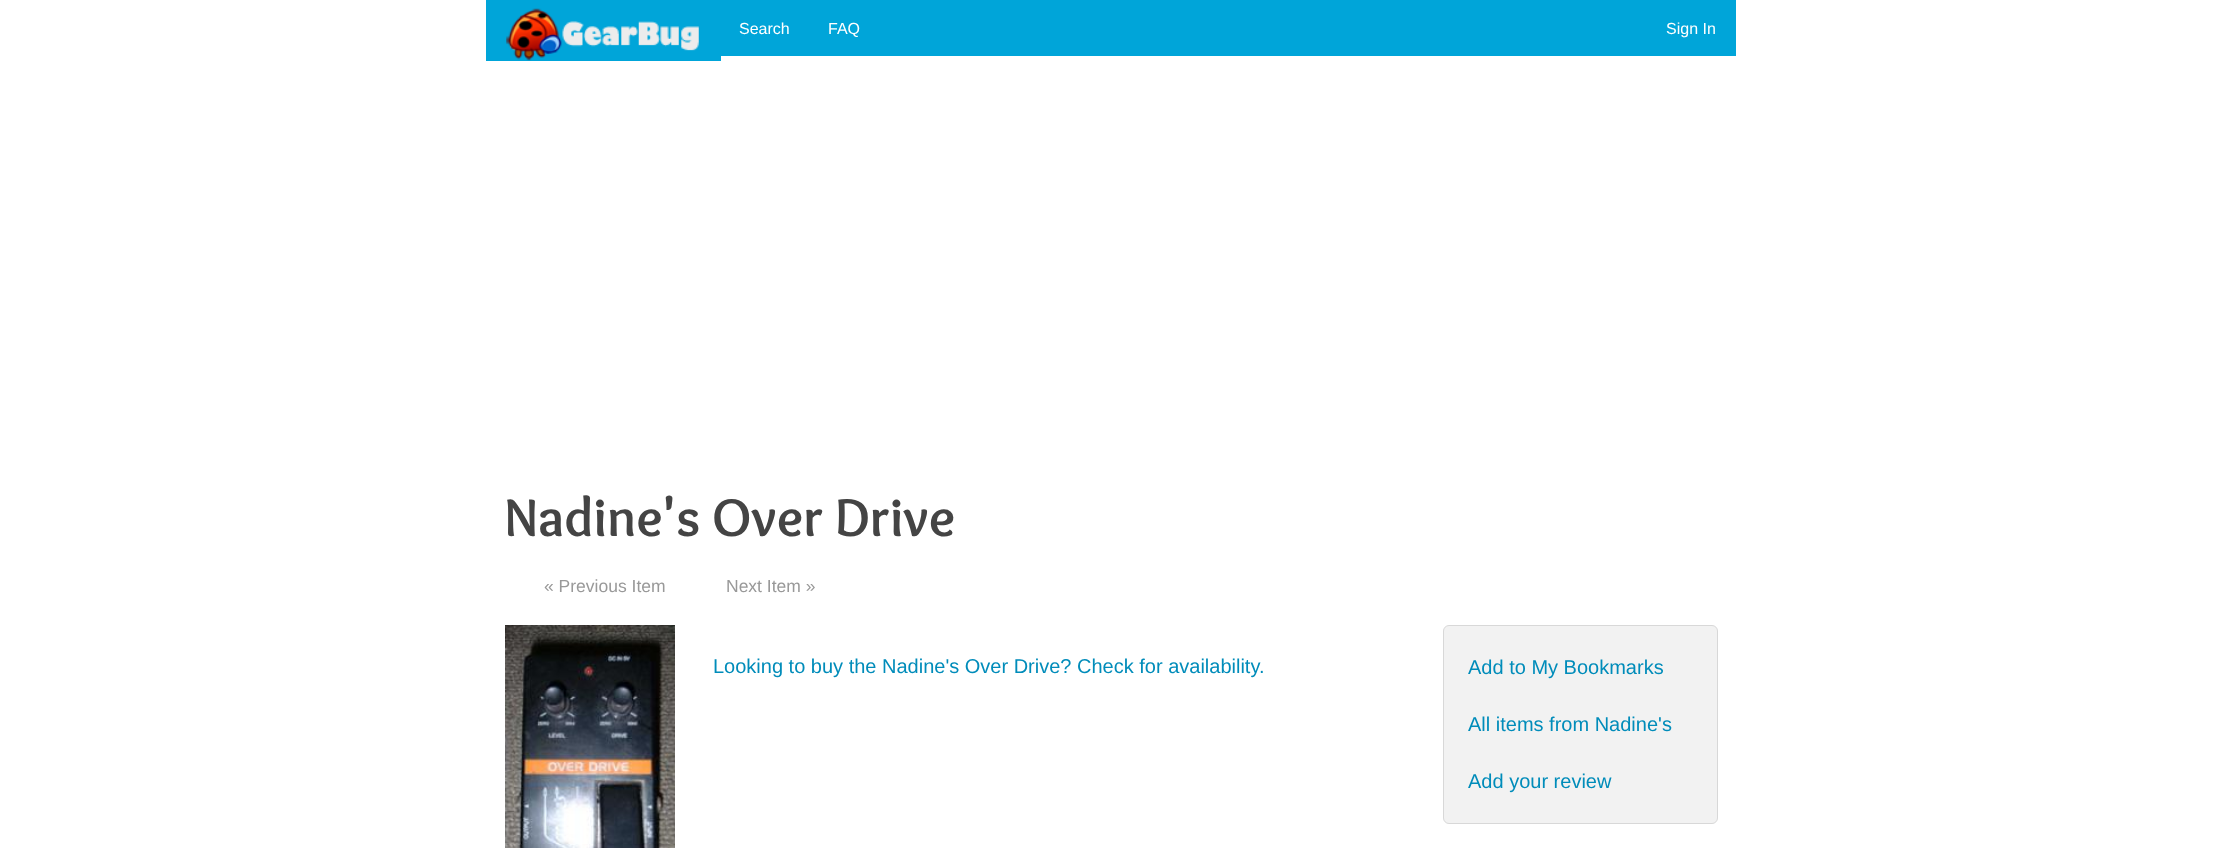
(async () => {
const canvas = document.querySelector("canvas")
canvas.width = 2221
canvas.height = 848
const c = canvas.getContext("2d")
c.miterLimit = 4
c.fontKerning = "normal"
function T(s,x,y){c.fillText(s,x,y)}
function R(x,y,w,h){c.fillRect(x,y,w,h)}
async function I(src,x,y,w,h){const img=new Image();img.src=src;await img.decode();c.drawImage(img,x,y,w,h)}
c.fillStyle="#fff"
R(0,0,2221,848)
c.fillStyle="#00a5d9"
R(880,0,856,56)
R(486,0,235,61)
await I("1.png",506,8,193,53)
R(721,0,159,56)
c.font="16px Liberation Sans"
c.fillStyle="#fff"
T("Search",739,34)
T("FAQ",828,34)
T("Sign In",1666,34)
c.font="bold 55px Overlock"
c.fillStyle="#444"
T("Nadine's Over Drive",504,536)
c.font="17.5px Liberation Sans"
c.fillStyle="#999"
T("« Previous Item",544,592)
T("Next Item »",726,592)
await I("2.png",505,625,170,223)
c.font="20px Liberation Sans"
c.fillStyle="#008cba"
T("Looking to buy the Nadine's Over Drive? Check for availability.",713,673)
c.fillStyle="#f2f2f2"
c.beginPath()
c.roundRect(1443.5,625.5,274,198,5.5)
c.fill()
c.strokeStyle="#d8d8d8"
c.stroke()
c.fillStyle="#008cba"
T("Add to My Bookmarks",1468,674)
T("All items from Nadine's",1468,731)
T("Add your review",1468,788)
})()
